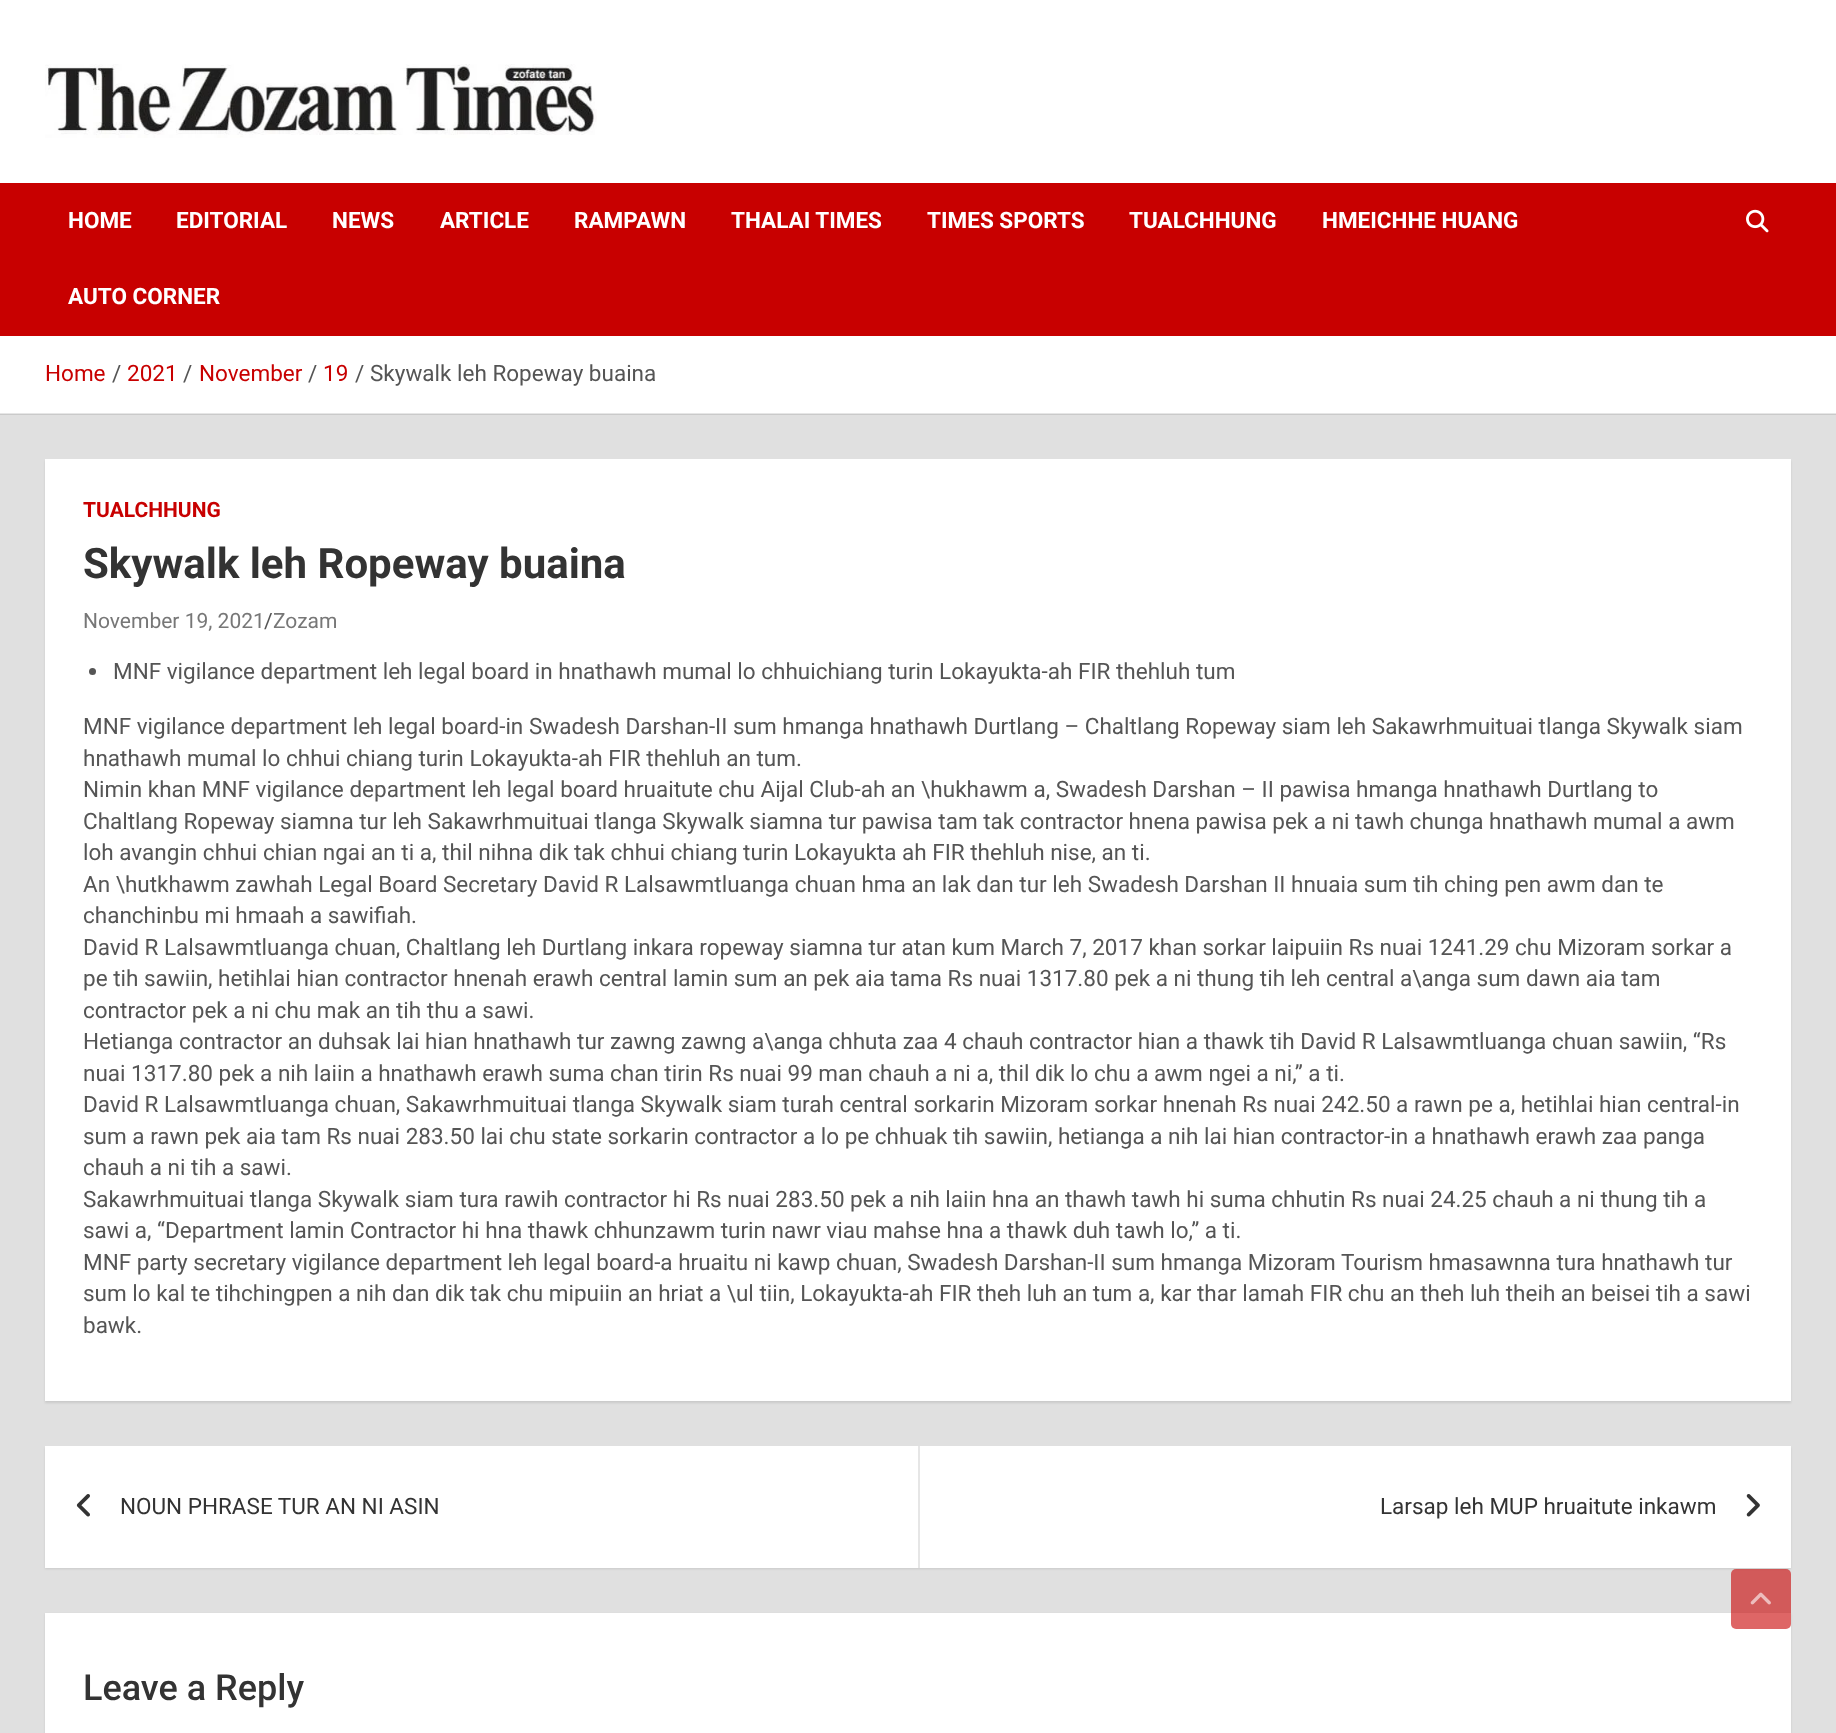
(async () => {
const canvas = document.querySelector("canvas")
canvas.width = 1836
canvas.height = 1733
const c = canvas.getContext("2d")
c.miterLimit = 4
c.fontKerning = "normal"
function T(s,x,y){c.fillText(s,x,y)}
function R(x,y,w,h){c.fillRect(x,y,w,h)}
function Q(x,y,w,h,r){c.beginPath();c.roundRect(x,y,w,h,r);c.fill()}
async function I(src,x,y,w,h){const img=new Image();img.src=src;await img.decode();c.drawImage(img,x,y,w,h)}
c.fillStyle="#e0e0e0"
R(0,0,1836,1733)
c.fillStyle="#cacaca"
R(0,414,1836,1)
c.fillStyle="#fff"
R(0,0,1836,183)
await I("1.png",45,64,552,74)
c.fillStyle="#c80000"
R(0,183,1836,153)
c.font="bold 22.5px Roboto"
c.fillStyle="#fff"
T("HOME",68,228)
T("EDITORIAL",176,228)
T("NEWS",332,228)
T("ARTICLE",440,228)
T("RAMPAWN",574,228)
T("THALAI TIMES",731,228)
T("TIMES SPORTS",927,228)
T("TUALCHHUNG",1129,228)
T("HMEICHHE HUANG",1322,228)
T("AUTO CORNER",68,304)
await I("2.png",1746,209,23,24)
R(0,336,1836,77)
c.fillStyle="#e6e6e6"
R(0,413,1836,1)
c.font="22.5px Roboto"
c.fillStyle="#c80000"
T("Home",45,381)
c.fillStyle="#555"
T("/",112,381)
c.fillStyle="#c80000"
T("2021",127,381)
c.fillStyle="#555"
T("/",183,381)
c.fillStyle="#c80000"
T("November",199,381)
c.fillStyle="#555"
T("/",308,381)
c.fillStyle="#c80000"
T("19",323,381)
c.fillStyle="#555"
T("/",355,381)
T("Skywalk leh Ropeway buaina",370,381)
c.fillStyle="#0000001a"
c.filter="blur(1px)"
c.beginPath()
c.rect(45,461,1746,942)
c.fill()
c.filter="none"
c.fillStyle="#fff"
R(45,459,1746,942)
c.font="bold 21px Roboto"
c.fillStyle="#c80000"
T("TUALCHHUNG",83,517)
c.font="bold 42px Roboto"
c.fillStyle="#333"
T("Skywalk leh Ropeway buaina",83,578)
c.font="21px Roboto"
c.fillStyle="#777"
T("November 19, 2021",83,628)
c.fillStyle="#555"
T("/",264,628)
c.fillStyle="#777"
T("Zozam",273,628)
c.fillStyle="#555"
c.beginPath()
c.arc(92.5,671.5,3.5,0,7)
c.fill()
c.font="22.5px Roboto"
T("MNF vigilance department leh legal board in hnathawh mumal lo chhuichiang turin Lokayukta-ah FIR thehluh tum",113,679)
T("MNF vigilance department leh legal board-in Swadesh Darshan-II sum hmanga hnathawh Durtlang – Chaltlang Ropeway siam leh Sakawrhmuituai tlanga Skywalk siam",83,734)
T("hnathawh mumal lo chhui chiang turin Lokayukta-ah FIR thehluh an tum.",83,766)
T("Nimin khan MNF vigilance department leh legal board hruaitute chu Aijal Club-ah an \\hukhawm a, Swadesh Darshan – II pawisa hmanga hnathawh Durtlang to",83,797)
T("Chaltlang Ropeway siamna tur leh Sakawrhmuituai tlanga Skywalk siamna tur pawisa tam tak contractor hnena pawisa pek a ni tawh chunga hnathawh mumal a awm",83,829)
T("loh avangin chhui chian ngai an ti a, thil nihna dik tak chhui chiang turin Lokayukta ah FIR thehluh nise, an ti.",83,860)
T("An \\hutkhawm zawhah Legal Board Secretary David R Lalsawmtluanga chuan hma an lak dan tur leh Swadesh Darshan II hnuaia sum tih ching pen awm dan te",83,892)
T("chanchinbu mi hmaah a sawifiah.",83,923)
T("David R Lalsawmtluanga chuan, Chaltlang leh Durtlang inkara ropeway siamna tur atan kum March 7, 2017 khan sorkar laipuiin Rs nuai 1241.29 chu Mizoram sorkar a",83,955)
T("pe tih sawiin, hetihlai hian contractor hnenah erawh central lamin sum an pek aia tama Rs nuai 1317.80 pek a ni thung tih leh central a\\anga sum dawn aia tam",83,986)
T("contractor pek a ni chu mak an tih thu a sawi.",83,1018)
T("Hetianga contractor an duhsak lai hian hnathawh tur zawng zawng a\\anga chhuta zaa 4 chauh contractor hian a thawk tih David R Lalsawmtluanga chuan sawiin, “Rs",83,1049)
T("nuai 1317.80 pek a nih laiin a hnathawh erawh suma chan tirin Rs nuai 99 man chauh a ni a, thil dik lo chu a awm ngei a ni,” a ti.",83,1081)
T("David R Lalsawmtluanga chuan, Sakawrhmuituai tlanga Skywalk siam turah central sorkarin Mizoram sorkar hnenah Rs nuai 242.50 a rawn pe a, hetihlai hian central-in",83,1112)
T("sum a rawn pek aia tam Rs nuai 283.50 lai chu state sorkarin contractor a lo pe chhuak tih sawiin, hetianga a nih lai hian contractor-in a hnathawh erawh zaa panga",83,1144)
T("chauh a ni tih a sawi.",83,1175)
T("Sakawrhmuituai tlanga Skywalk siam tura rawih contractor hi Rs nuai 283.50 pek a nih laiin hna an thawh tawh hi suma chhutin Rs nuai 24.25 chauh a ni thung tih a",83,1207)
T("sawi a, “Department lamin Contractor hi hna thawk chhunzawm turin nawr viau mahse hna a thawk duh tawh lo,” a ti.",83,1238)
T("MNF party secretary vigilance department leh legal board-a hruaitu ni kawp chuan, Swadesh Darshan-II sum hmanga Mizoram Tourism hmasawnna tura hnathawh tur",83,1270)
T("sum lo kal te tihchingpen a nih dan dik tak chu mipuiin an hriat a \\ul tiin, Lokayukta-ah FIR theh luh an tum a, kar thar lamah FIR chu an theh luh theih an beisei tih a sawi",83,1301)
T("bawk.",83,1333)
c.fillStyle="#0000001a"
c.filter="blur(1px)"
c.beginPath()
c.rect(45,1448,1746,121)
c.fill()
c.filter="none"
c.fillStyle="#fff"
R(45,1446,1746,122)
await I("3.png",76,1494,14,23)
c.fillStyle="#333"
T("NOUN PHRASE TUR AN NI ASIN",120,1514)
c.fillStyle="#e6e6e6"
R(918,1446,2,122)
c.fillStyle="#333"
T("Larsap leh MUP hruaitute inkawm",1380,1514)
await I("4.png",1746,1494,14,23)
c.fillStyle="#0000001a"
c.filter="blur(1px)"
c.beginPath()
c.rect(45,1614,1746,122)
c.fill()
c.filter="none"
c.fillStyle="#fff"
R(45,1613,1746,120)
c.font="500 36px Roboto"
c.fillStyle="#333"
T("Leave a Reply",83,1700)
c.fillStyle="#c8000099"
Q(1731,1569,60,60,5)
await I("5.png",1750,1592,21,13)
})()
